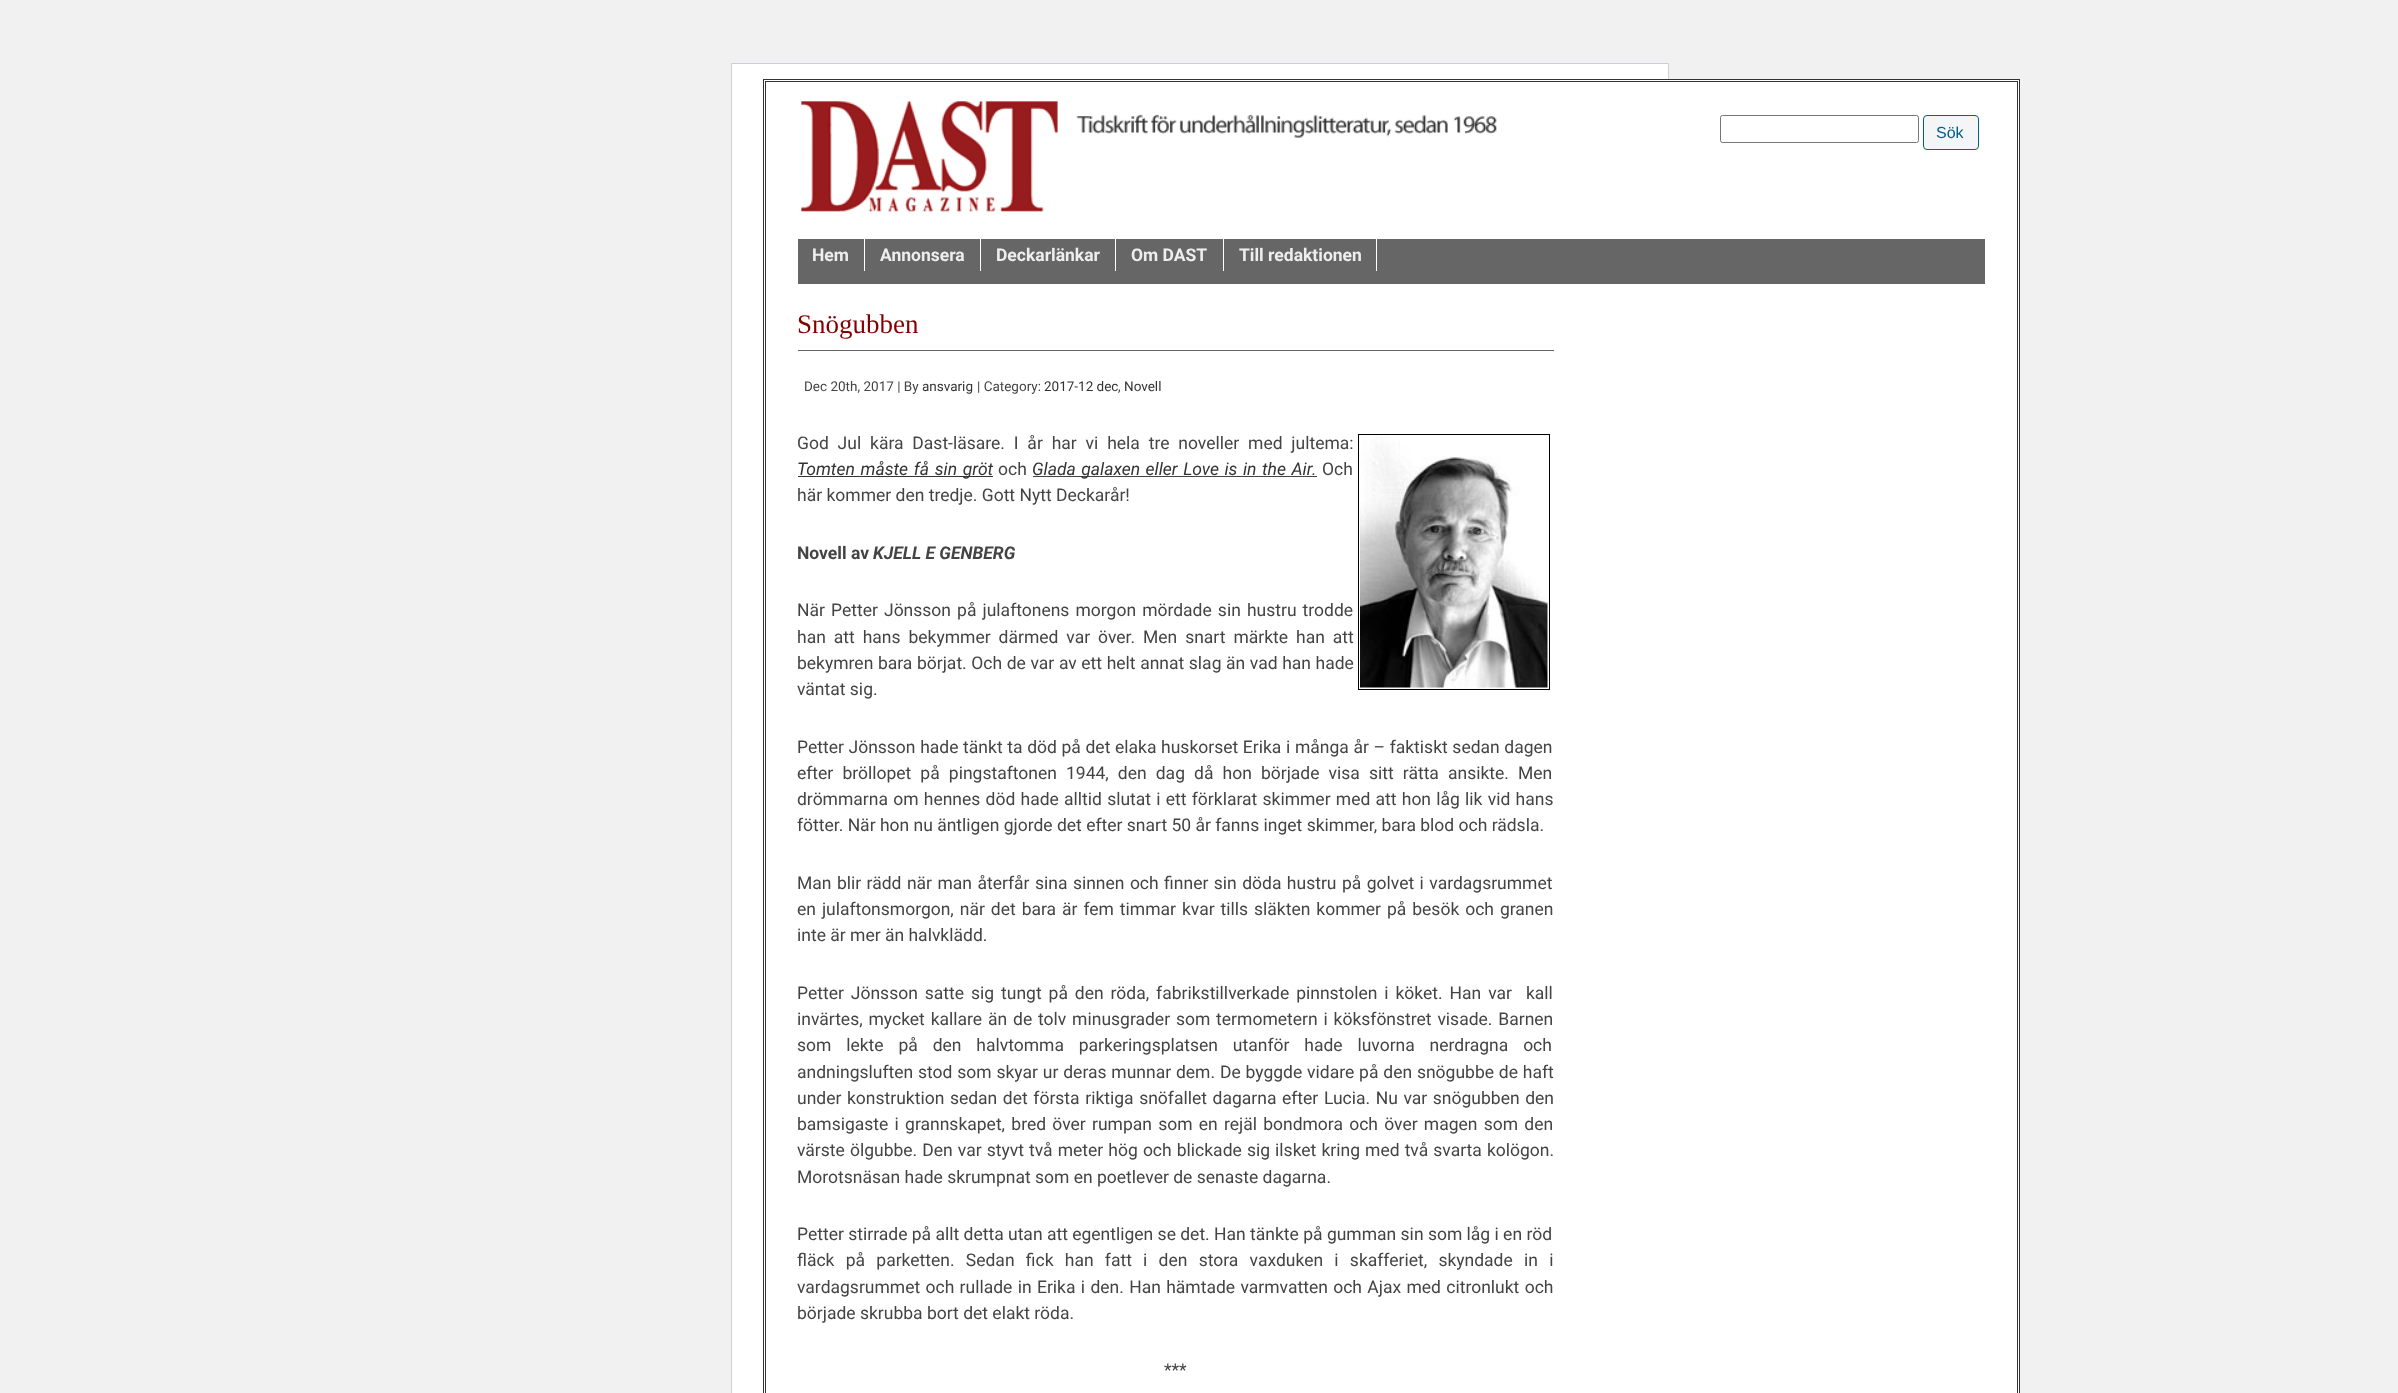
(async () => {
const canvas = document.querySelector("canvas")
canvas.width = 2398
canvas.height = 1393
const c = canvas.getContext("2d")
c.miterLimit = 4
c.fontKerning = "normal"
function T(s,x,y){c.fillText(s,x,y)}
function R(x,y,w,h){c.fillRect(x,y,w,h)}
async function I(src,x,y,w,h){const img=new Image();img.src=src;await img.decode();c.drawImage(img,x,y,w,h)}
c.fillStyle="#f1f1f1"
R(0,0,2398,1393)
c.fillStyle="#fff"
c.beginPath()
c.rect(731.5,63.5,937,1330)
c.fill()
c.strokeStyle="#ccd0d4"
c.stroke()
R(1668,80,351,1313)
c.strokeStyle="#333"
c.strokeRect(763.5,79.5,1256,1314)
c.strokeRect(765.5,81.5,1252,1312)
await I("1.png",801,101,696,111)
c.beginPath()
c.roundRect(1720.5,115.5,198,27,2)
c.strokeStyle="#767676"
c.stroke()
c.fillStyle="#f3f5f6"
c.beginPath()
c.roundRect(1923.5,115.5,55,34,3.5)
c.fill()
c.strokeStyle="#016087"
c.stroke()
c.font="16px Liberation Sans"
c.fillStyle="#016087"
T("Sök",1936,138)
c.fillStyle="#666"
R(798,239,1187,45)
c.fillStyle="#fff"
R(864,239,1,32)
c.font="bold 17.5px Roboto"
c.fillStyle="#eee"
T("Hem",812,261)
c.fillStyle="#fff"
R(980,239,1,32)
c.fillStyle="#eee"
T("Annonsera",880,261)
c.fillStyle="#fff"
R(1115,239,1,32)
c.fillStyle="#eee"
T("Deckarlänkar",996,261)
c.fillStyle="#fff"
R(1223,239,1,32)
c.fillStyle="#eee"
T("Om DAST",1131,261)
c.fillStyle="#fff"
R(1376,239,1,32)
c.fillStyle="#eee"
T("Till redaktionen",1239,261)
c.fillStyle="#666"
R(798,350,756,1)
c.font="27px Liberation Serif"
c.fillStyle="#840000"
T("Snögubben",797,333)
c.font="13.5px Roboto"
c.fillStyle="#444"
T("Dec 20th, 2017 | By",804,391)
c.fillStyle="#333"
T("ansvarig",922,391)
c.fillStyle="#444"
T("| Category:",977,391)
c.fillStyle="#333"
T("2017-12 dec",1044,391)
c.fillStyle="#444"
T(",",1118,391)
c.fillStyle="#333"
T("Novell",1124,391)
c.wordSpacing="4.5px"
c.font="17.5px Roboto"
c.fillStyle="#444"
T("God Jul kära Dast-läsare. I år har vi hela tre noveller med jultema:",797,449)
c.strokeStyle="#000"
c.strokeRect(1358.5,434.5,191,255)
await I("2.png",1360,436,188,252)
c.fillStyle="#333"
R(798,476,195,1)
c.wordSpacing="1.5px"
c.font="italic 17.5px Roboto"
T("Tomten måste få sin gröt",797,475)
c.wordSpacing="0px"
c.font="17.5px Roboto"
c.fillStyle="#444"
T("och",998,475)
R(1033,476,284,1)
c.wordSpacing="1.25px"
c.font="italic 17.5px Roboto"
c.fillStyle="#333"
T("Glada galaxen eller Love is in the Air",1032,475)
c.wordSpacing="0px"
c.fillStyle="#444"
T(".",1312,475)
c.font="17.5px Roboto"
T("Och",1322,475)
T("här kommer den tredje. Gott Nytt Deckarår!",797,501)
c.font="bold 17.5px Roboto"
T("Novell av",797,559)
c.font="italic bold 17.5px Roboto"
T("KJELL E GENBERG",873,559)
c.wordSpacing="1.75px"
c.font="17.5px Roboto"
T("När Petter Jönsson på julaftonens morgon mördade sin hustru trodde",797,616)
c.wordSpacing="3.6px"
T("han att hans bekymmer därmed var över. Men snart märkte han att",797,643)
c.wordSpacing="0.25px"
T("bekymren bara börjat. Och de var av ett helt annat slag än vad han hade",797,669)
c.wordSpacing="0px"
T("väntat sig.",797,695)
c.wordSpacing="0.3px"
T("Petter Jönsson hade tänkt ta död på det elaka huskorset Erika i många år – faktiskt sedan dagen",797,753)
c.wordSpacing="4.75px"
T("efter bröllopet på pingstaftonen 1944, den dag då hon började visa sitt rätta ansikte. Men",797,779)
c.wordSpacing="0.9px"
T("drömmarna om hennes död hade alltid slutat i ett förklarat skimmer med att hon låg lik vid hans",797,805)
c.wordSpacing="0px"
T("fötter. När hon nu äntligen gjorde det efter snart 50 år fanns inget skimmer, bara blod och rädsla.",797,831)
c.wordSpacing="1.1px"
T("Man blir rädd när man återfår sina sinnen och finner sin döda hustru på golvet i vardagsrummet",797,889)
c.wordSpacing="1.6px"
T("en julaftonsmorgon, när det bara är fem timmar kvar tills släkten kommer på besök och granen",797,915)
c.wordSpacing="0px"
T("inte är mer än halvklädd.",797,941)
c.wordSpacing="2.6px"
T("Petter Jönsson satte sig tungt på den röda, fabrikstillverkade pinnstolen i köket. Han var  kall",797,999)
c.wordSpacing="1.5px"
T("invärtes, mycket kallare än de tolv minusgrader som termometern i köksfönstret visade. Barnen",797,1025)
c.wordSpacing="10.5px"
T("som lekte på den halvtomma parkeringsplatsen utanför hade luvorna nerdragna och",797,1051)
c.wordSpacing="0.5px"
T("andningsluften stod som skyar ur deras munnar dem. De byggde vidare på den snögubbe de haft",797,1078)
c.wordSpacing="1.25px"
T("under konstruktion sedan det första riktiga snöfallet dagarna efter Lucia. Nu var snögubben den",797,1104)
c.wordSpacing="1.9px"
T("bamsigaste i grannskapet, bred över rumpan som en rejäl bondmora och över magen som den",797,1130)
c.wordSpacing="0.75px"
T("värste ölgubbe. Den var styvt två meter hög och blickade sig ilsket kring med två svarta kolögon.",797,1156)
c.wordSpacing="0px"
T("Morotsnäsan hade skrumpnat som en poetlever de senaste dagarna.",797,1183)
T("Petter stirrade på allt detta utan att egentligen se det. Han tänkte på gumman sin som låg i en röd",797,1240)
c.wordSpacing="6.9px"
T("fläck på parketten. Sedan fick han fatt i den stora vaxduken i skafferiet, skyndade in i",797,1266)
c.wordSpacing="1px"
T("vardagsrummet och rullade in Erika i den. Han hämtade varmvatten och Ajax med citronlukt och",797,1293)
c.wordSpacing="0px"
T("började skrubba bort det elakt röda.",797,1319)
T("***",1164,1376)
})()
